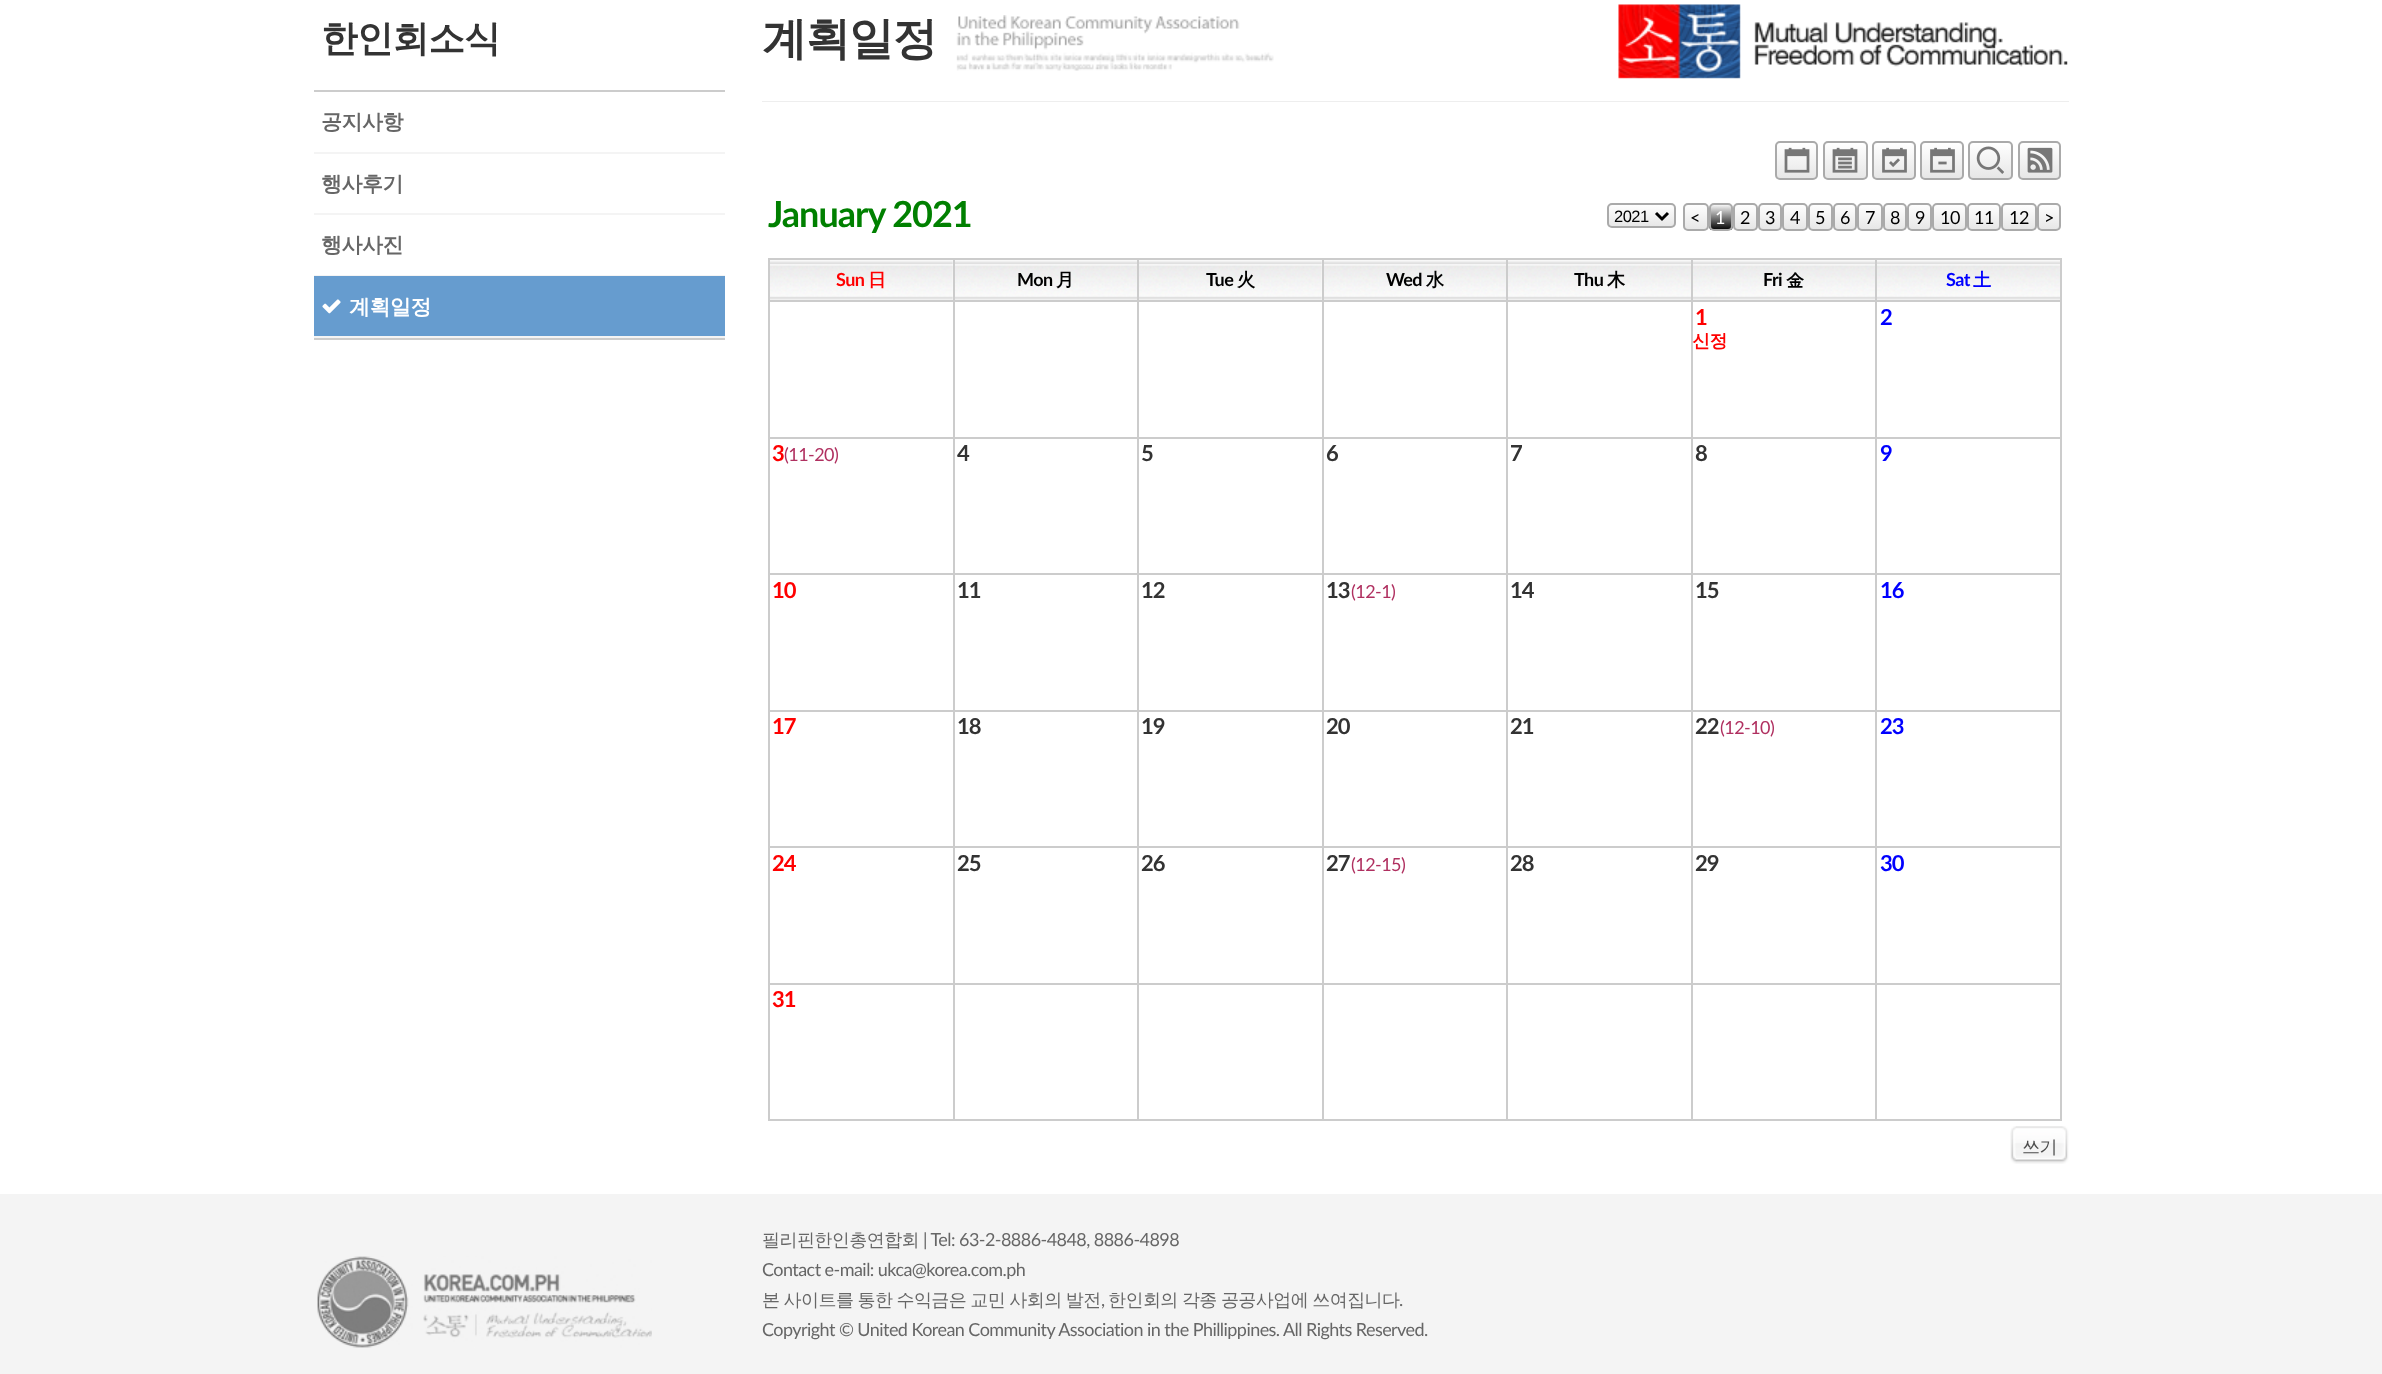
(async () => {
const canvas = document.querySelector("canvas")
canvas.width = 2382
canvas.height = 1374
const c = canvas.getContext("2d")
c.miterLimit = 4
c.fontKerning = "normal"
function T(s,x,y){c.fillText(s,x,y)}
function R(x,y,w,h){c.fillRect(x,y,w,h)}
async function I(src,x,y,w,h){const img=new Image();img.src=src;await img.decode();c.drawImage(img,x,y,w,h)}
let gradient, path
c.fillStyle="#fff"
R(0,0,2382,1374)
c.letterSpacing="-1px"
c.font="bold 36.75px WenQuanYi Zen Hei"
c.fillStyle="#333"
T("한인회소식",321,51)
c.fillStyle="#ccc"
R(314,90,411,2)
R(314,338,411,2)
c.fillStyle="#f4f4f4"
R(314,152,411,2)
c.letterSpacing="-0.5px"
c.font="bold 21px WenQuanYi Zen Hei"
c.fillStyle="#666"
T("공지사항",321,129)
c.fillStyle="#f4f4f4"
R(314,213,411,2)
c.fillStyle="#666"
T("행사후기",321,191)
c.fillStyle="#f4f4f4"
R(314,275,411,1)
c.fillStyle="#666"
T("행사사진",321,252)
c.fillStyle="#669ccf"
R(314,276,411,60)
c.fillStyle="#f4f4f4"
R(314,336,411,2)
await I("1.png",322,299,19,15)
c.fillStyle="#fff"
T("계획일정",349,314)
c.letterSpacing="-1.5px"
c.font="bold 45px WenQuanYi Zen Hei"
c.fillStyle="#333"
T("계획일정",762,54)
await I("2.png",956,15,318,56)
await I("3.png",1618,4,450,75)
c.fillStyle="#eee"
R(762,101,1307,1)
c.save()
c.beginPath()
c.roundRect(1775,141,43,39,5)
c.clip()
gradient = c.createLinearGradient(1796,143,1796,179)
gradient.addColorStop(0,"#fff")
gradient.addColorStop(1,"#e6e6e6")
c.fillStyle = gradient
R(1775,143,43,36)
c.restore()
c.beginPath()
c.roundRect(1776,142,41,37,4)
c.strokeStyle="#aaa"
c.lineWidth=2
c.stroke()
await I("4.png",1784,147,26,26)
c.save()
c.beginPath()
c.roundRect(1823,141,45,39,5)
c.clip()
gradient = c.createLinearGradient(1845,143,1845,179)
gradient.addColorStop(0,"#fff")
gradient.addColorStop(1,"#e6e6e6")
c.fillStyle = gradient
R(1823,143,45,36)
c.restore()
c.beginPath()
c.roundRect(1824,142,43,37,4)
c.stroke()
await I("5.png",1832,147,26,26)
c.save()
c.beginPath()
c.roundRect(1872,141,44,39,5)
c.clip()
gradient = c.createLinearGradient(1894,143,1894,179)
gradient.addColorStop(0,"#fff")
gradient.addColorStop(1,"#e6e6e6")
c.fillStyle = gradient
R(1872,143,44,36)
c.restore()
c.beginPath()
c.roundRect(1873,142,42,37,4)
c.stroke()
await I("6.png",1882,147,25,26)
c.save()
c.beginPath()
c.roundRect(1920,141,44,39,5)
c.clip()
gradient = c.createLinearGradient(1942,143,1942,179)
gradient.addColorStop(0,"#fff")
gradient.addColorStop(1,"#e6e6e6")
c.fillStyle = gradient
R(1920,143,44,36)
c.restore()
c.beginPath()
c.roundRect(1921,142,42,37,4)
c.stroke()
await I("7.png",1930,147,25,26)
c.save()
c.beginPath()
c.roundRect(1968,141,45,39,5)
c.clip()
gradient = c.createLinearGradient(1991,143,1991,179)
gradient.addColorStop(0,"#fff")
gradient.addColorStop(1,"#e6e6e6")
c.fillStyle = gradient
R(1968,143,45,36)
c.restore()
c.beginPath()
c.roundRect(1969,142,43,37,4)
c.stroke()
await I("8.png",1976,146,28,28)
c.save()
c.beginPath()
c.roundRect(2018,141,43,39,5)
c.clip()
gradient = c.createLinearGradient(2039,143,2039,179)
gradient.addColorStop(0,"#fff")
gradient.addColorStop(1,"#e6e6e6")
c.fillStyle = gradient
R(2018,143,43,36)
c.restore()
c.beginPath()
c.roundRect(2019,142,41,37,4)
c.stroke()
await I("9.png",2027,147,26,26)
c.letterSpacing="-1px"
c.font="bold 36px Lato"
c.fillStyle="#008000"
T("January 2021",768,227)
c.save()
c.beginPath()
c.roundRect(1607,203,69,25,5)
c.clip()
gradient = c.createLinearGradient(1641,204,1641,227)
gradient.addColorStop(0,"#fff")
gradient.addColorStop(1,"#e6e6e6")
c.fillStyle = gradient
R(1607,204,69,23)
c.restore()
c.beginPath()
c.roundRect(1608,204,67,23,4)
c.stroke()
path = new Path2D("M1656 213l6 6l6-6")
c.strokeStyle="#000"
c.lineWidth=3
c.stroke(path)
c.letterSpacing="-0.5px"
c.font="16.5px Liberation Sans"
c.fillStyle="#000"
T("2021",1614,222)
c.save()
c.beginPath()
c.roundRect(1683,203,26,28,5)
c.clip()
gradient = c.createLinearGradient(1696,204,1696,230)
gradient.addColorStop(0,"#fff")
gradient.addColorStop(1,"#e6e6e6")
c.fillStyle = gradient
R(1683,204,26,26)
c.restore()
c.beginPath()
c.roundRect(1684,204,24,26,4)
c.strokeStyle="#aaa"
c.lineWidth=2
c.stroke()
c.letterSpacing="-0.55px"
c.font="18px Lato"
T("<",1690,224)
c.save()
c.beginPath()
c.roundRect(1709,203,24,28,5)
c.clip()
gradient = c.createLinearGradient(1721,204,1721,230)
gradient.addColorStop(0,"#fff")
gradient.addColorStop(1,"#000")
c.fillStyle = gradient
R(1709,204,24,26)
c.restore()
c.beginPath()
c.roundRect(1710,204,22,26,4)
c.stroke()
c.fillStyle="#fff"
T("1",1715,224)
c.save()
c.beginPath()
c.roundRect(1733,203,25,28,5)
c.clip()
gradient = c.createLinearGradient(1745,204,1745,230)
gradient.addColorStop(0,"#fff")
gradient.addColorStop(1,"#e6e6e6")
c.fillStyle = gradient
R(1733,204,25,26)
c.restore()
c.beginPath()
c.roundRect(1734,204,23,26,4)
c.stroke()
c.fillStyle="#000"
T("2",1740,224)
c.save()
c.beginPath()
c.roundRect(1758,203,24,28,5)
c.clip()
gradient = c.createLinearGradient(1770,204,1770,230)
gradient.addColorStop(0,"#fff")
gradient.addColorStop(1,"#e6e6e6")
c.fillStyle = gradient
R(1758,204,24,26)
c.restore()
c.beginPath()
c.roundRect(1759,204,22,26,4)
c.stroke()
T("3",1765,224)
c.save()
c.beginPath()
c.roundRect(1782,203,26,28,5)
c.clip()
gradient = c.createLinearGradient(1795,204,1795,230)
gradient.addColorStop(0,"#fff")
gradient.addColorStop(1,"#e6e6e6")
c.fillStyle = gradient
R(1782,204,26,26)
c.restore()
c.beginPath()
c.roundRect(1783,204,24,26,4)
c.stroke()
T("4",1790,224)
c.save()
c.beginPath()
c.roundRect(1808,203,25,28,5)
c.clip()
gradient = c.createLinearGradient(1820,204,1820,230)
gradient.addColorStop(0,"#fff")
gradient.addColorStop(1,"#e6e6e6")
c.fillStyle = gradient
R(1808,204,25,26)
c.restore()
c.beginPath()
c.roundRect(1809,204,23,26,4)
c.stroke()
T("5",1815,224)
c.save()
c.beginPath()
c.roundRect(1833,203,24,28,5)
c.clip()
gradient = c.createLinearGradient(1845,204,1845,230)
gradient.addColorStop(0,"#fff")
gradient.addColorStop(1,"#e6e6e6")
c.fillStyle = gradient
R(1833,204,24,26)
c.restore()
c.beginPath()
c.roundRect(1834,204,22,26,4)
c.stroke()
T("6",1840,224)
c.save()
c.beginPath()
c.roundRect(1857,203,26,28,5)
c.clip()
gradient = c.createLinearGradient(1870,204,1870,230)
gradient.addColorStop(0,"#fff")
gradient.addColorStop(1,"#e6e6e6")
c.fillStyle = gradient
R(1857,204,26,26)
c.restore()
c.beginPath()
c.roundRect(1858,204,24,26,4)
c.stroke()
T("7",1865,224)
c.save()
c.beginPath()
c.roundRect(1883,203,24,28,5)
c.clip()
gradient = c.createLinearGradient(1895,204,1895,230)
gradient.addColorStop(0,"#fff")
gradient.addColorStop(1,"#e6e6e6")
c.fillStyle = gradient
R(1883,204,24,26)
c.restore()
c.beginPath()
c.roundRect(1884,204,22,26,4)
c.stroke()
T("8",1890,224)
c.save()
c.beginPath()
c.roundRect(1907,203,25,28,5)
c.clip()
gradient = c.createLinearGradient(1919,204,1919,230)
gradient.addColorStop(0,"#fff")
gradient.addColorStop(1,"#e6e6e6")
c.fillStyle = gradient
R(1907,204,25,26)
c.restore()
c.beginPath()
c.roundRect(1908,204,23,26,4)
c.stroke()
T("9",1915,224)
c.save()
c.beginPath()
c.roundRect(1932,203,35,28,5)
c.clip()
gradient = c.createLinearGradient(1949,204,1949,230)
gradient.addColorStop(0,"#fff")
gradient.addColorStop(1,"#e6e6e6")
c.fillStyle = gradient
R(1932,204,35,26)
c.restore()
c.beginPath()
c.roundRect(1933,204,33,26,4)
c.stroke()
T("10",1940,224)
c.save()
c.beginPath()
c.roundRect(1967,203,34,28,5)
c.clip()
gradient = c.createLinearGradient(1984,204,1984,230)
gradient.addColorStop(0,"#fff")
gradient.addColorStop(1,"#e6e6e6")
c.fillStyle = gradient
R(1967,204,34,26)
c.restore()
c.beginPath()
c.roundRect(1968,204,32,26,4)
c.stroke()
T("11",1974,224)
c.save()
c.beginPath()
c.roundRect(2001,203,36,28,5)
c.clip()
gradient = c.createLinearGradient(2019,204,2019,230)
gradient.addColorStop(0,"#fff")
gradient.addColorStop(1,"#e6e6e6")
c.fillStyle = gradient
R(2001,204,36,26)
c.restore()
c.beginPath()
c.roundRect(2002,204,34,26,4)
c.stroke()
T("12",2009,224)
c.save()
c.beginPath()
c.roundRect(2037,203,24,28,5)
c.clip()
gradient = c.createLinearGradient(2049,204,2049,230)
gradient.addColorStop(0,"#fff")
gradient.addColorStop(1,"#e6e6e6")
c.fillStyle = gradient
R(2037,204,24,26)
c.restore()
c.beginPath()
c.roundRect(2038,204,22,26,4)
c.stroke()
T(">",2044,224)
await I("10.png",770,260,183,40)
c.fillStyle="#ccc"
R(1875,258,186,2)
R(1875,300,186,2)
R(1875,437,186,2)
R(1875,573,186,2)
R(1875,710,186,2)
R(1875,846,186,2)
R(1875,983,186,2)
R(2060,983,2,138)
R(1875,1119,186,2)
R(1875,983,2,138)
R(1691,983,186,2)
R(1875,846,2,138)
R(1691,846,186,2)
R(1875,710,2,138)
R(1691,710,186,2)
R(1875,573,2,138)
R(1691,573,186,2)
R(1875,437,2,138)
R(1691,437,186,2)
R(1875,300,2,138)
R(1691,300,186,2)
R(1875,258,2,44)
R(1691,258,186,2)
R(1691,1119,186,2)
R(1691,983,2,138)
R(1506,983,186,2)
R(1691,846,2,138)
R(1506,846,186,2)
R(1691,710,2,138)
R(1506,710,186,2)
R(1691,573,2,138)
R(1506,573,186,2)
R(1691,437,2,138)
R(1506,437,186,2)
R(1691,300,2,138)
R(1506,300,186,2)
R(1691,258,2,44)
R(1506,258,186,2)
R(1506,1119,186,2)
R(1506,983,2,138)
R(1322,983,186,2)
R(1506,846,2,138)
R(1322,846,186,2)
R(1506,710,2,138)
R(1322,710,186,2)
R(1506,573,2,138)
R(1322,573,186,2)
R(1506,437,2,138)
R(1322,437,186,2)
R(1506,300,2,138)
R(1322,300,186,2)
R(1506,258,2,44)
R(1322,258,186,2)
await I("12.png",1139,260,183,40)
await I("13.png",1321,260,185,40)
R(1322,1119,186,2)
R(1322,983,2,138)
R(1137,983,186,2)
R(1322,846,2,138)
R(1137,846,186,2)
R(1322,710,2,138)
R(1137,710,186,2)
R(1322,573,2,138)
R(1137,573,186,2)
R(1322,437,2,138)
R(1137,437,186,2)
R(1322,300,2,138)
R(1137,300,186,2)
R(1322,258,2,44)
R(1137,258,186,2)
R(1137,1119,186,2)
R(1137,983,2,138)
R(953,983,186,2)
R(1137,846,2,138)
R(953,846,186,2)
R(1137,710,2,138)
R(953,710,186,2)
R(1137,573,2,138)
R(953,573,186,2)
R(1137,437,2,138)
R(953,437,186,2)
R(1137,300,2,138)
R(953,300,186,2)
R(1137,258,2,44)
R(953,258,186,2)
await I("11.png",952,260,185,40)
R(953,1119,186,2)
R(953,983,2,138)
R(768,983,186,2)
R(953,846,2,138)
R(768,846,186,2)
R(953,710,2,138)
R(768,710,186,2)
R(953,573,2,138)
R(768,573,186,2)
R(953,437,2,138)
R(768,437,186,2)
R(953,300,2,138)
R(768,300,186,2)
R(953,258,2,44)
R(768,258,186,2)
R(768,1119,186,2)
R(768,983,2,138)
R(768,846,2,138)
R(768,710,2,138)
R(768,573,2,138)
R(768,437,2,138)
R(768,300,2,138)
R(768,258,2,44)
c.font="bold 18px Lato"
c.fillStyle="#f00"
T("Sun",836,286)
c.font="bold 18px WenQuanYi Zen Hei"
T("日",868,286)
c.font="bold 18px Lato"
c.fillStyle="#000"
T("Mon",1017,286)
c.font="bold 18px WenQuanYi Zen Hei"
T("月",1056,286)
c.font="bold 18px Lato"
T("Tue",1206,286)
c.font="bold 18px WenQuanYi Zen Hei"
T("火",1237,286)
c.font="bold 18px Lato"
T("Wed",1386,286)
c.font="bold 18px WenQuanYi Zen Hei"
T("水",1426,286)
await I("14.png",1508,260,183,40)
c.font="bold 18px Lato"
T("Thu",1574,286)
c.font="bold 18px WenQuanYi Zen Hei"
T("木",1607,286)
await I("15.png",1693,260,182,40)
c.font="bold 18px Lato"
T("Fri",1763,286)
c.font="bold 18px WenQuanYi Zen Hei"
T("金",1786,286)
await I("16.png",1877,260,183,40)
c.fillStyle="#ccc"
R(2060,846,2,138)
R(2060,710,2,138)
R(2060,573,2,138)
R(2060,437,2,138)
R(2060,300,2,138)
R(2060,258,2,44)
c.font="bold 18px Lato"
c.fillStyle="#00f"
T("Sat",1946,286)
c.font="bold 18px WenQuanYi Zen Hei"
T("土",1973,286)
c.letterSpacing="-1px"
c.font="bold 22px Lato"
c.fillStyle="#f00"
T("1",1695,325)
c.letterSpacing="-0.55px"
c.font="bold 18px WenQuanYi Zen Hei"
T("신정",1692,347)
c.letterSpacing="-1px"
c.font="bold 22px Lato"
c.fillStyle="#00f"
T("2",1880,325)
c.fillStyle="#f00"
T("3",772,461)
c.letterSpacing="-0.55px"
c.font="18px Lato"
c.fillStyle="#b03060"
T("(11-20)",784,461)
c.letterSpacing="-1px"
c.font="bold 22px Lato"
c.fillStyle="#333"
T("4",957,461)
T("5",1141,461)
T("6",1326,461)
T("7",1510,461)
T("8",1695,461)
c.fillStyle="#00f"
T("9",1880,461)
c.fillStyle="#f00"
T("10",772,598)
c.fillStyle="#333"
T("11",957,598)
T("12",1141,598)
T("13",1326,598)
c.letterSpacing="-0.55px"
c.font="18px Lato"
c.fillStyle="#b03060"
T("(12-1)",1351,598)
c.letterSpacing="-1px"
c.font="bold 22px Lato"
c.fillStyle="#333"
T("14",1510,598)
T("15",1695,598)
c.fillStyle="#00f"
T("16",1880,598)
c.fillStyle="#f00"
T("17",772,734)
c.fillStyle="#333"
T("18",957,734)
T("19",1141,734)
T("20",1326,734)
T("21",1510,734)
T("22",1695,734)
c.letterSpacing="-0.55px"
c.font="18px Lato"
c.fillStyle="#b03060"
T("(12-10)",1720,734)
c.letterSpacing="-1px"
c.font="bold 22px Lato"
c.fillStyle="#00f"
T("23",1880,734)
c.fillStyle="#f00"
T("24",772,871)
c.fillStyle="#333"
T("25",957,871)
T("26",1141,871)
T("27",1326,871)
c.letterSpacing="-0.55px"
c.font="18px Lato"
c.fillStyle="#b03060"
T("(12-15)",1351,871)
c.letterSpacing="-1px"
c.font="bold 22px Lato"
c.fillStyle="#333"
T("28",1510,871)
T("29",1695,871)
c.fillStyle="#00f"
T("30",1880,871)
c.fillStyle="#f00"
T("31",772,1007)
await I("17.png",2010,1126,53,38)
await I("18.png",2016,1126,53,38)
c.letterSpacing="-0.55px"
c.font="500 18px WenQuanYi Zen Hei"
c.fillStyle="#4d4d4d"
T("쓰기",2022,1153)
c.fillStyle="#f4f4f4"
R(0,1194,2382,180)
await I("19.png",317,1256,335,92)
c.fillStyle="#666"
T("필리핀한인총연합회",762,1246)
c.font="18px Lato"
T("| Tel: 63-2-8886-4848, 8886-4898",923,1246)
T("Contact e-mail: ukca@korea.com.ph",762,1276)
c.wordSpacing="-0.75px"
c.font="500 18px WenQuanYi Zen Hei"
T("본 사이트를 통한 수익금은 교민 사회의 발전",762,1306)
c.wordSpacing="0px"
c.font="18px Lato"
T(",",1101,1306)
c.wordSpacing="-0.75px"
c.font="500 18px WenQuanYi Zen Hei"
T("한인회의 각종 공공사업에 쓰여집니다",1108,1306)
c.wordSpacing="0px"
c.font="18px Lato"
T(".",1399,1306)
T("Copyright © United Korean Community Association in the Phillippines. All Rights Reserved.",762,1336)
})()
